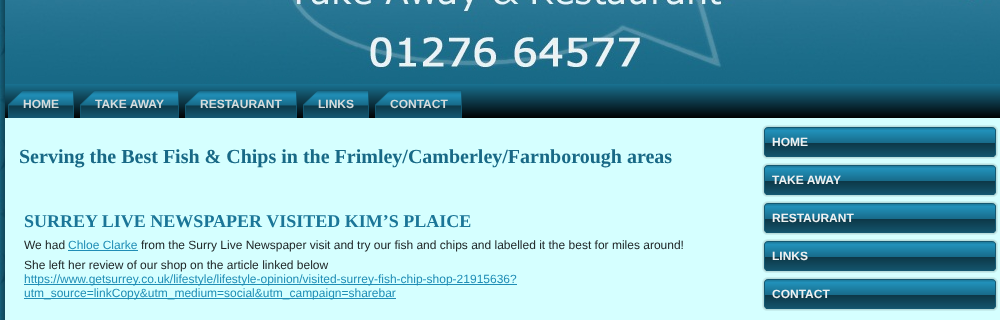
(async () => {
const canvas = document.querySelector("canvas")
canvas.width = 1000
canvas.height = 320
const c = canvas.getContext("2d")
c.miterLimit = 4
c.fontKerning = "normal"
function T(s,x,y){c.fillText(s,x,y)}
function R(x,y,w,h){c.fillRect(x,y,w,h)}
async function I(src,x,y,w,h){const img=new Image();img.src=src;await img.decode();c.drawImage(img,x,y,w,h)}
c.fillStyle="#fff"
R(0,0,1000,320)
await I("1.png",0,0,5,320)
await I("2.png",1,0,29,320)
await I("3.png",5,0,995,84)
await I("4.png",17,0,976,72)
await I("5.png",5,84,995,34)
await I("6.png",8,90,51,28)
await I("7.png",59,90,15,28)
c.font="bold 12px Liberation Sans"
c.fillStyle="#d5dcdd"
T("HOME",23,108)
await I("8.png",80,90,84,28)
await I("7.png",164,90,15,28)
T("TAKE AWAY",95,108)
await I("9.png",185,90,97,28)
await I("7.png",282,90,15,28)
T("RESTAURANT",200,108)
await I("6.png",303,90,51,28)
await I("7.png",354,90,15,28)
T("LINKS",318,108)
await I("10.png",375,90,72,28)
await I("7.png",447,90,15,28)
T("CONTACT",390,108)
c.fillStyle="#d5ffff"
R(30,118,970,202)
c.font="bold 20px Liberation Serif"
c.fillStyle="#186986"
T("Serving the Best Fish & Chips in the Frimley/Camberley/Farnborough areas",19,163)
c.font="bold 18px Liberation Serif"
c.fillStyle="#1b7698"
T("SURREY LIVE NEWSPAPER VISITED KIM’S PLAICE",24,227)
c.font="12px Liberation Sans"
c.fillStyle="#202728"
T("We had",24,249)
c.fillStyle="#208eb6"
T("Chloe Clarke",68,249)
R(68,250,70,1)
c.fillStyle="#202728"
T("from the Surry Live Newspaper visit and try our fish and chips and labelled it the best for miles around!",141,249)
T("She left her review of our shop on the article linked below",24,269)
c.fillStyle="#208eb6"
R(24,284,493,1)
T("https://www.getsurrey.co.uk/lifestyle/lifestyle-opinion/visited-surrey-fish-chip-shop-21915636?",24,283)
R(24,298,372,1)
T("utm_source=linkCopy&utm_medium=social&utm_campaign=sharebar",24,297)
await I("11.png",762,125,228,34)
await I("12.png",990,125,8,34)
c.font="bold 12px Liberation Sans"
c.fillStyle="#eef1f1"
T("HOME",772,146)
await I("11.png",762,163,228,34)
await I("12.png",990,163,8,34)
T("TAKE AWAY",772,184)
await I("11.png",762,201,228,34)
await I("12.png",990,201,8,34)
T("RESTAURANT",772,222)
await I("11.png",762,239,228,34)
await I("12.png",990,239,8,34)
T("LINKS",772,260)
await I("11.png",762,277,228,34)
await I("12.png",990,277,8,34)
T("CONTACT",772,298)
})()
